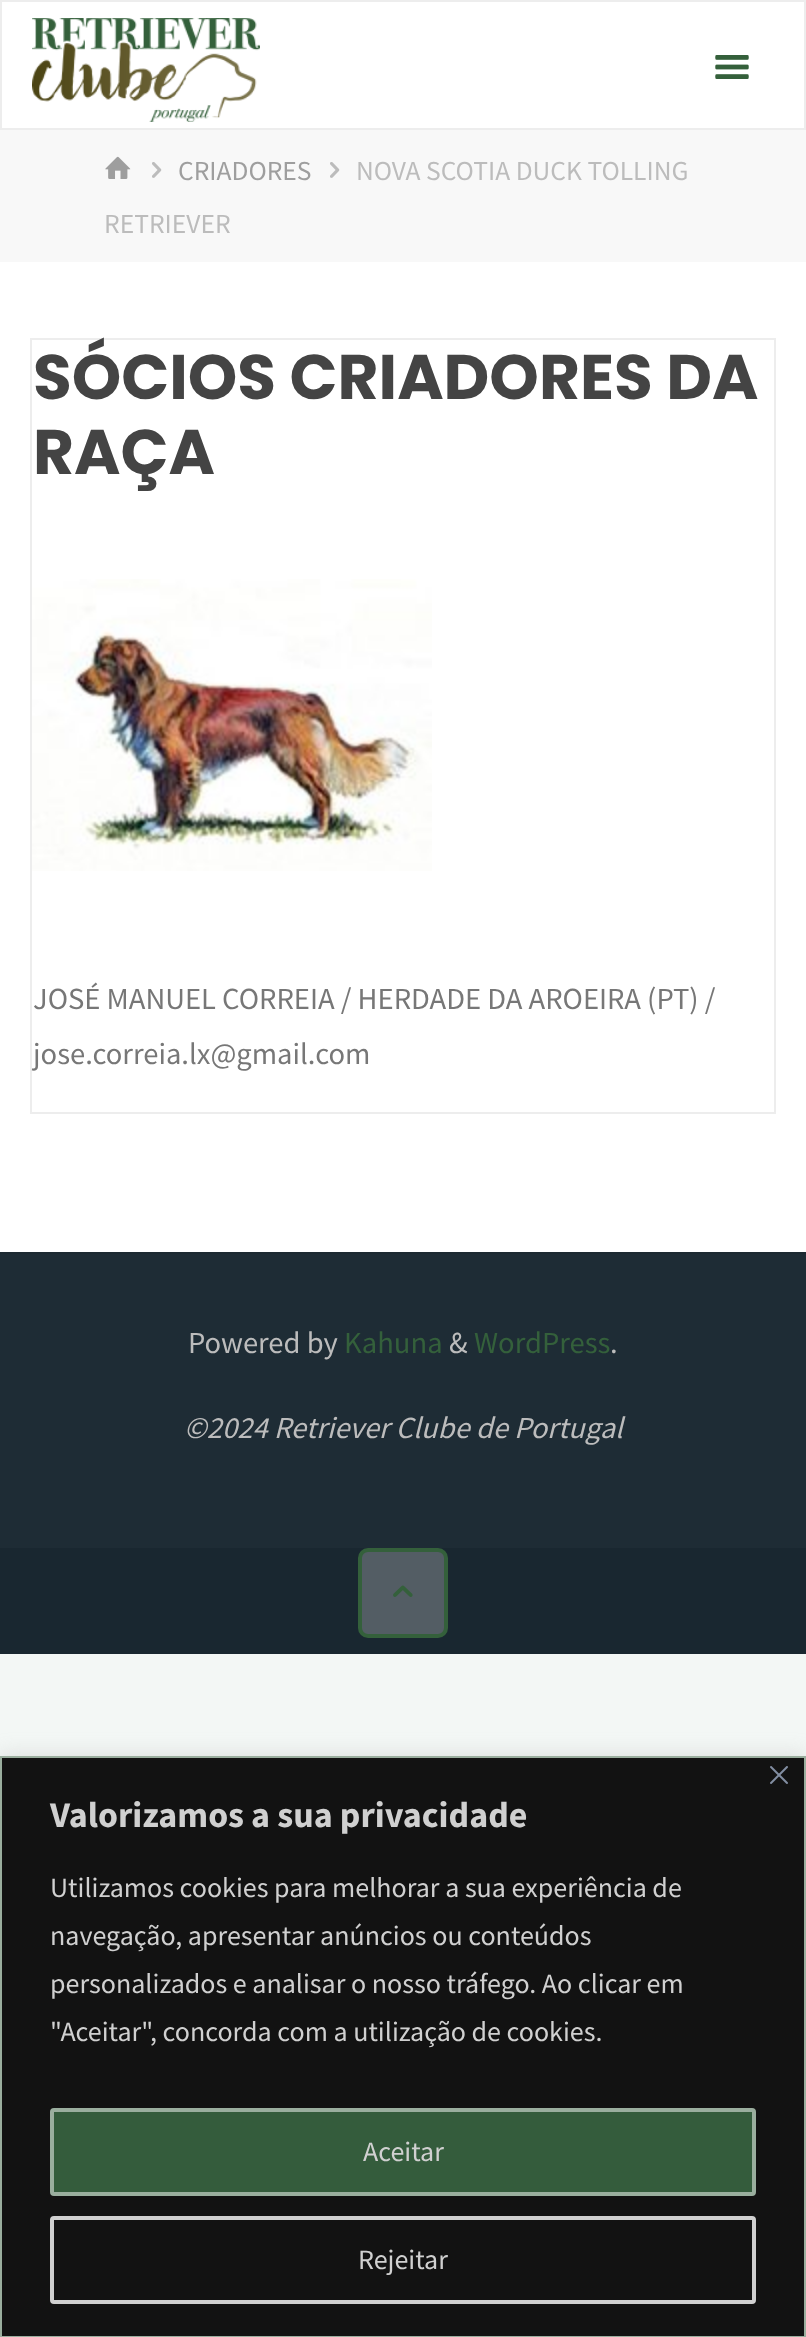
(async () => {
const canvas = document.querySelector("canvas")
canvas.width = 806
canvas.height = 2337
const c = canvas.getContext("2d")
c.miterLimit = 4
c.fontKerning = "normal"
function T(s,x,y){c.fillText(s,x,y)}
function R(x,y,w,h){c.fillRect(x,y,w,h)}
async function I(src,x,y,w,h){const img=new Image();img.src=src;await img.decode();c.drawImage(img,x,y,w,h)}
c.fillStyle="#f3f7f5"
R(0,0,806,2337)
c.fillStyle="#fff"
c.beginPath()
c.rect(1,1,804,128)
c.fill()
c.strokeStyle="#ededed"
c.lineWidth=2
c.stroke()
await I("1.png",32,18,228,104)
await I("2.png",715,55,34,24)
c.fillStyle="#f8f8f8"
R(0,130,806,132)
await I("3.png",105,156,26,23)
await I("4.png",152,162,10,16)
c.font="27.5px Source Sans Pro"
c.fillStyle="#9e9e9e"
T("CRIADORES",178,180)
await I("4.png",330,162,10,16)
c.fillStyle="#bcbcbc"
T("NOVA SCOTIA DUCK TOLLING",356,180)
T("RETRIEVER",104,233)
c.fillStyle="#fff"
R(0,262,806,990)
c.strokeRect(31,339,744,774)
c.font="bold 63px Poppins"
c.fillStyle="#444"
T("SÓCIOS CRIADORES DA",33,399)
T("RAÇA",33,474)
await I("5.png",32,579,400,292)
c.font="30.6px Source Sans Pro"
c.fillStyle="#777"
T("JOSÉ MANUEL CORREIA / HERDADE DA AROEIRA (PT) /",33,1009)
T("jose.correia.lx@gmail.com",33,1064)
c.fillStyle="#1c2931"
R(0,1252,806,2)
c.fillStyle="#1e2c35"
R(0,1254,806,294)
c.fillStyle="#bcbcbc"
T("Powered by",188,1353)
c.fillStyle="#34603b"
T("Kahuna",344,1353)
c.fillStyle="#bcbcbc"
T("&",449,1353)
c.fillStyle="#34603b"
T("WordPress",474,1353)
c.fillStyle="#bcbcbc"
T(".",610,1353)
c.font="italic 30.6px Source Sans Pro"
T("©2024 Retriever Clube de Portugal",184,1438)
c.fillStyle="#192730"
R(0,1548,806,106)
c.fillStyle="#535d64"
c.beginPath()
c.roundRect(360,1550,86,86,8)
c.fill()
c.strokeStyle="#34603b"
c.lineWidth=4
c.stroke()
await I("6.png",393,1585,20,12)
c.fillStyle="#acabab4d"
c.filter="blur(10px)"
c.beginPath()
c.rect(0,1754,806,582)
c.fill()
c.filter="none"
c.fillStyle="#121212"
c.beginPath()
c.rect(1,1757,804,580)
c.fill()
c.strokeStyle="#9aae9e"
c.lineWidth=2
c.stroke()
await I("7.png",770,1766,18,18)
c.font="bold 36px Source Sans Pro"
c.fillStyle="#d0d0d0"
T("Valorizamos a sua privacidade",50,1827)
c.font="28px Source Sans Pro"
T("Utilizamos cookies para melhorar a sua experiência de",50,1897)
T("navegação, apresentar anúncios ou conteúdos",50,1945)
T("personalizados e analisar o nosso tráfego. Ao clicar em",50,1993)
T("\"Aceitar\", concorda com a utilização de cookies.",50,2041)
c.fillStyle="#345c3c"
c.beginPath()
c.roundRect(52,2110,702,84,2)
c.fill()
c.lineWidth=4
c.stroke()
c.fillStyle="#d0d0d0"
T("Aceitar",363,2161)
c.beginPath()
c.roundRect(52,2218,702,84,2)
c.strokeStyle="#d0d0d0"
c.stroke()
T("Rejeitar",358,2269)
})()
